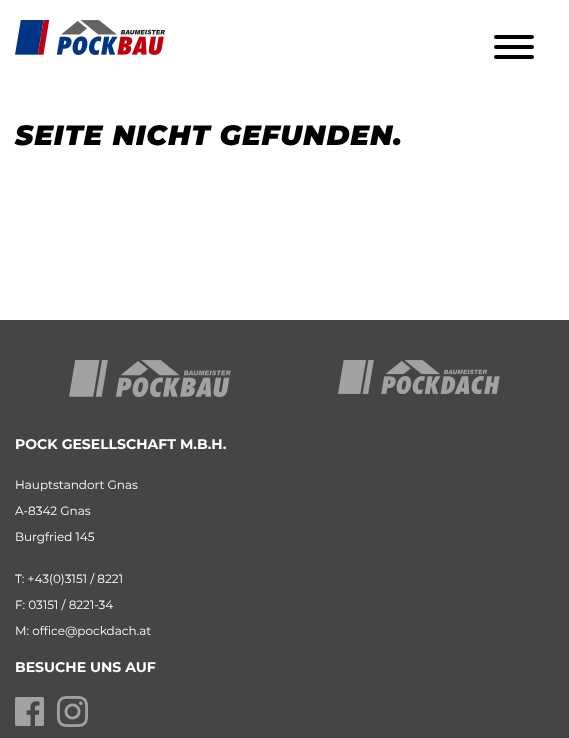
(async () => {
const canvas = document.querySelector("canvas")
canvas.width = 569
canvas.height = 738
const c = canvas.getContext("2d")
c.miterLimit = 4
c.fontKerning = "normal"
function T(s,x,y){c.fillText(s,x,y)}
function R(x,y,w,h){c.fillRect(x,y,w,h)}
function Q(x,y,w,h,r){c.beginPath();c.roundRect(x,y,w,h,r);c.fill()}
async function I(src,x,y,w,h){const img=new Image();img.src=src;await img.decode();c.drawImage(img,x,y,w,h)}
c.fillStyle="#fff"
R(0,0,569,738)
await I("1.png",15,20,150,35)
c.fillStyle="#000"
Q(494,45,40,4,2)
Q(494,35,40,4,2)
Q(494,55,40,4,2)
c.letterSpacing="0.8px"
c.font="italic 100 28px Montserrat"
T("SEITE NICHT GEFUNDEN.",15,145)
c.fillStyle="#454545"
R(0,320,569,418)
await I("2.png",69,360,162,37)
await I("3.png",338,360,162,34)
c.letterSpacing="0px"
c.font="100 14px Montserrat"
c.fillStyle="#fff"
T("POCK GESELLSCHAFT M.B.H.",15,449)
c.font="100 12px 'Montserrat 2'"
T("Hauptstandort Gnas",15,489)
T("A-8342 Gnas",15,515)
T("Burgfried 145",15,541)
T("T: +43(0)3151 / 8221",15,583)
T("F: 03151 / 8221-34",15,609)
T("M: office@pockdach.at",15,635)
c.font="100 14px Montserrat"
T("BESUCHE UNS AUF",15,672)
await I("4.png",15,697,29,29)
await I("5.png",57,696,31,31)
})()
